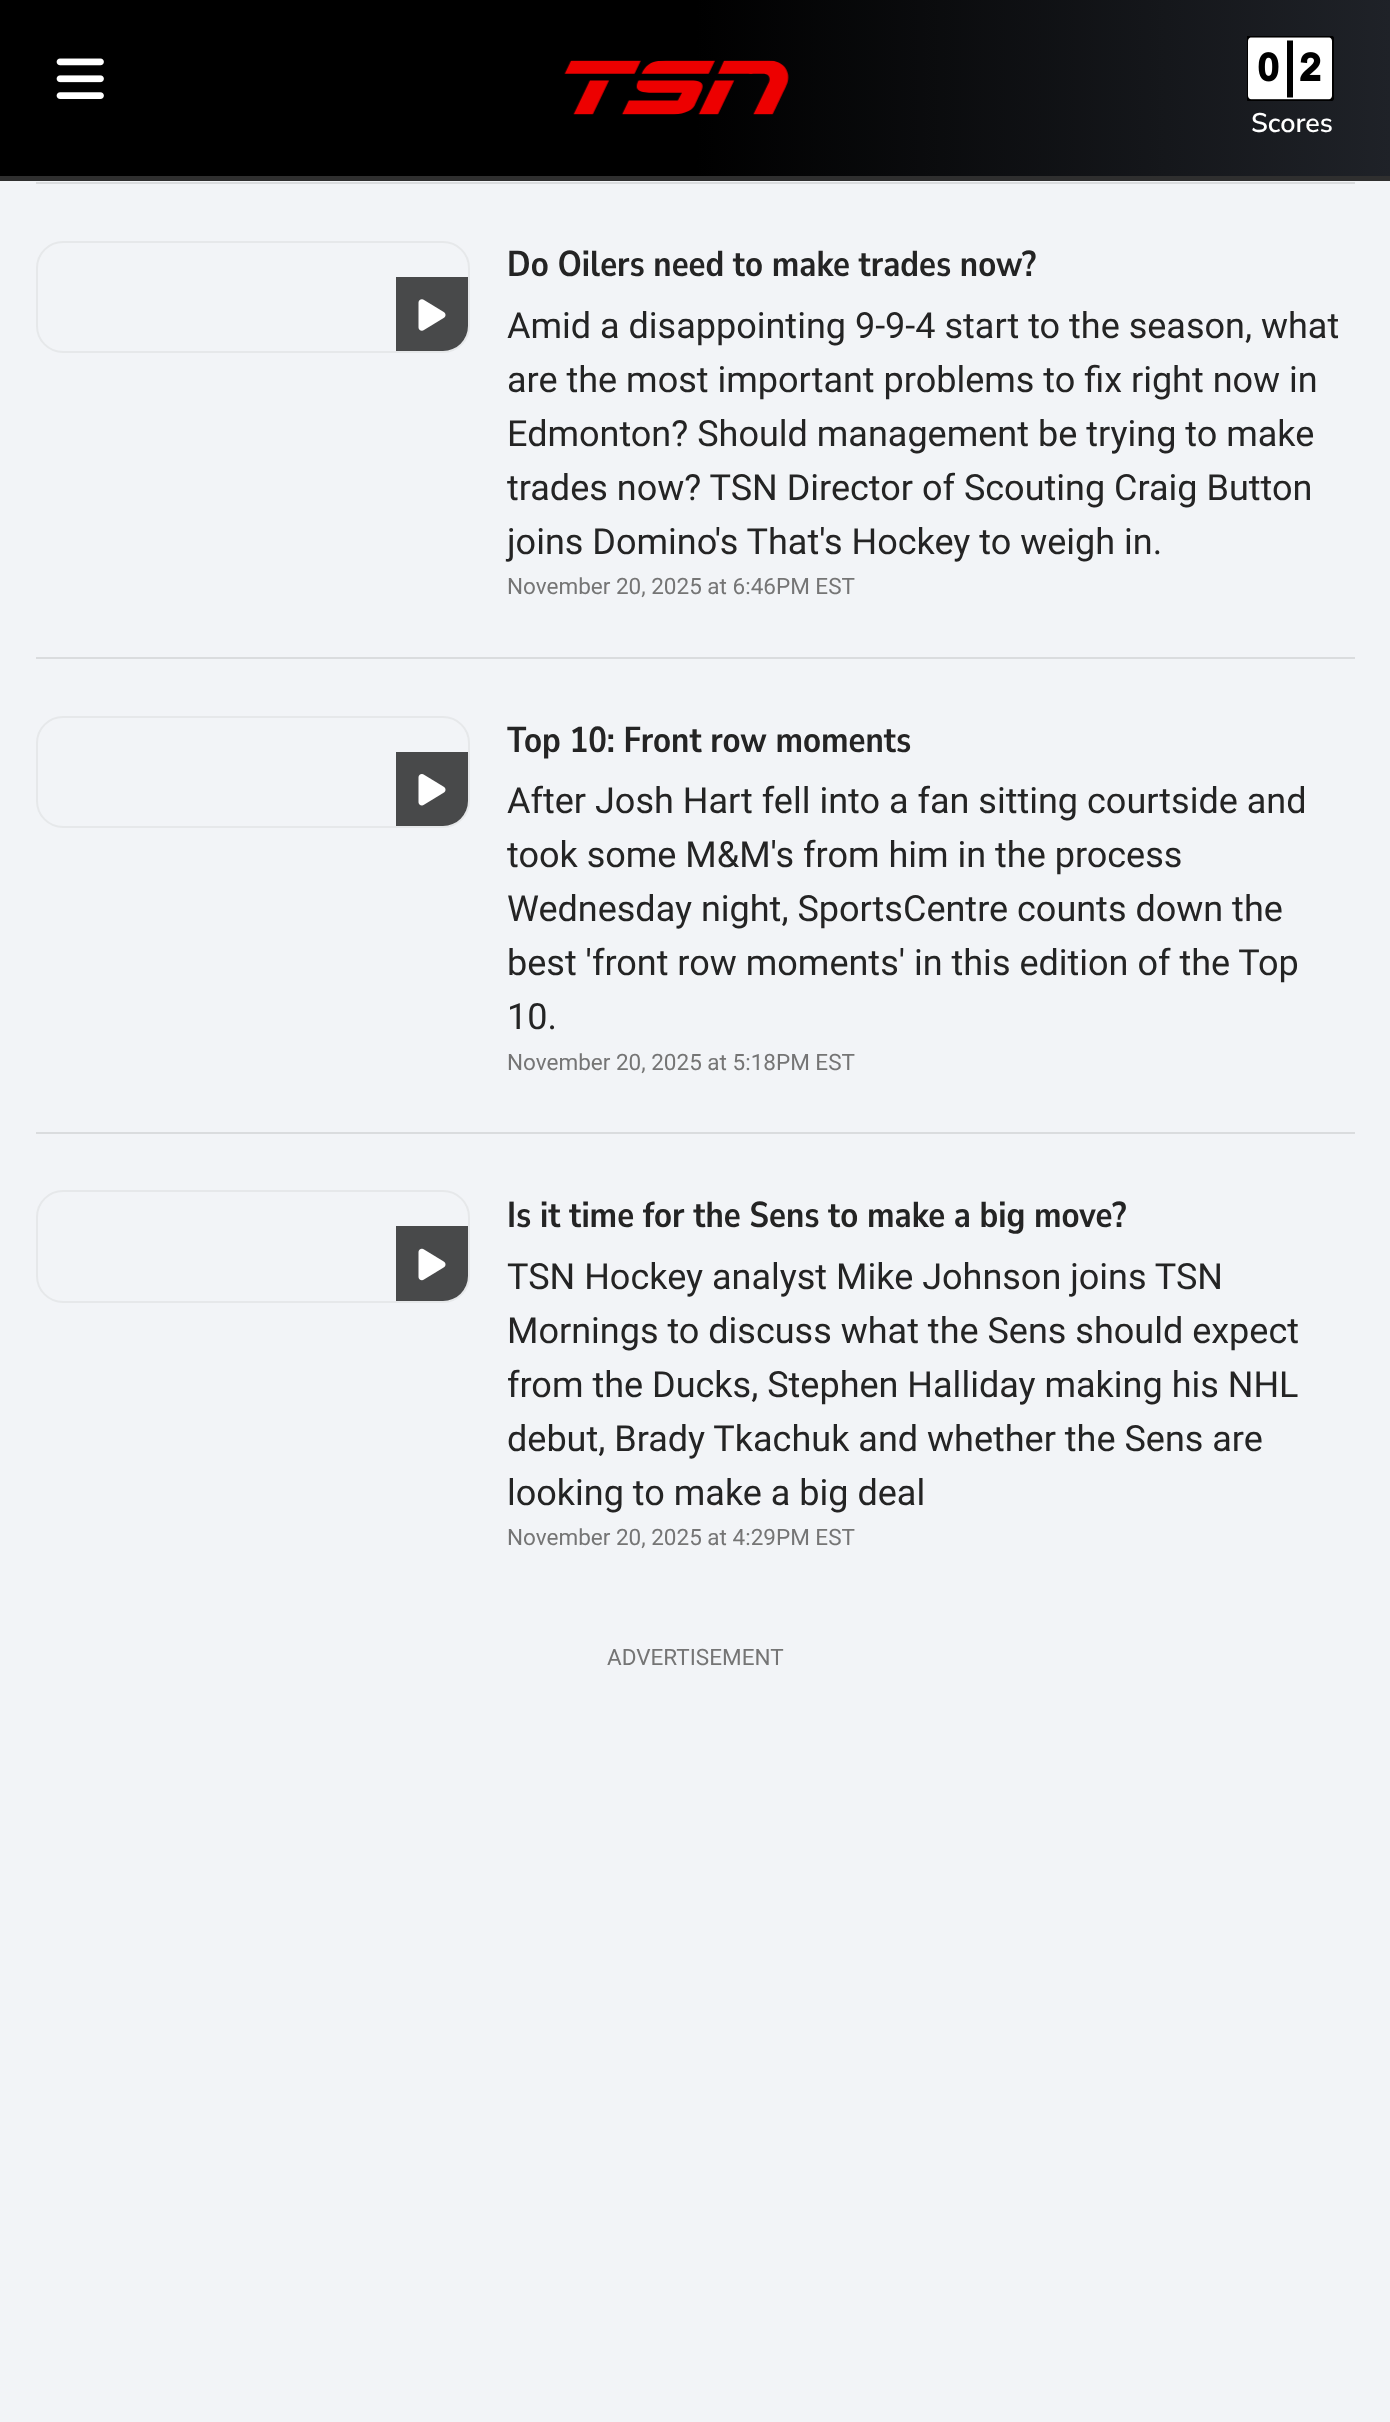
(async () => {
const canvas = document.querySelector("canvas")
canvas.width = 1390
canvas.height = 2422
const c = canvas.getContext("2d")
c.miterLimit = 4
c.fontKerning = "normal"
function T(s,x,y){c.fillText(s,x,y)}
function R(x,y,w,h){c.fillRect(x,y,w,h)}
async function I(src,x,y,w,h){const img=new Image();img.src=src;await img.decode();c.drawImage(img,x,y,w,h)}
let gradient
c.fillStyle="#f2f4f7"
R(0,0,1390,2422)
gradient = c.createLinearGradient(0,88,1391,88)
gradient.addColorStop(.5,"#000")
gradient.addColorStop(1,"#1f2228")
c.fillStyle = gradient
R(0,0,1390,176)
c.fillStyle="#2f2f2f"
R(0,176,1390,5)
await I("1.png",56,58,48,41)
await I("2.png",564,60,225,55)
await I("3.png",1247,36,87,65)
c.font="600 27px Nunito Sans"
c.fillStyle="#fff"
T("Scores",1251,132)
c.fillStyle="#dadcde"
R(36,182,1319,2)
c.beginPath()
c.roundRect(37,242,432,110,26)
c.strokeStyle="#e6e8ea"
c.lineWidth=2
c.stroke()
c.fillStyle="#000000b3"
c.beginPath()
c.roundRect(396,277,72,74,[0,0,25,0])
c.fill()
await I("4.png",418,299,28,32)
c.font="bold 36px Nunito Sans"
c.fillStyle="#242424"
T("Do Oilers need to make trades now?",507,276)
c.font="36px Roboto"
T("Amid a disappointing 9-9-4 start to the season, what",507,338)
T("are the most important problems to fix right now in",507,392)
T("Edmonton? Should management be trying to make",507,446)
T("trades now? TSN Director of Scouting Craig Button",507,500)
T("joins Domino's That's Hockey to weigh in.",507,554)
c.font="22.5px Roboto"
c.fillStyle="#757575"
T("November 20, 2025 at 6:46PM EST",507,594)
c.fillStyle="#dadcde"
R(36,657,1319,2)
c.beginPath()
c.roundRect(37,717,432,110,26)
c.stroke()
c.fillStyle="#000000b3"
c.beginPath()
c.roundRect(396,752,72,74,[0,0,25,0])
c.fill()
await I("5.png",418,774,28,32)
c.font="bold 36px Nunito Sans"
c.fillStyle="#242424"
T("Top 10: Front row moments",507,752)
c.font="36px Roboto"
T("After Josh Hart fell into a fan sitting courtside and",507,813)
T("took some M&M's from him in the process",507,867)
T("Wednesday night, SportsCentre counts down the",507,921)
T("best 'front row moments' in this edition of the Top",507,975)
T("10.",507,1029)
c.font="22.5px Roboto"
c.fillStyle="#757575"
T("November 20, 2025 at 5:18PM EST",507,1070)
c.fillStyle="#dadcde"
R(36,1132,1319,2)
c.beginPath()
c.roundRect(37,1191,432,111,26)
c.stroke()
c.fillStyle="#000000b3"
c.beginPath()
c.roundRect(396,1226,72,75,[0,0,25,0])
c.fill()
await I("6.png",418,1248,28,33)
c.font="bold 36px Nunito Sans"
c.fillStyle="#242424"
T("Is it time for the Sens to make a big move?",507,1227)
c.font="36px Roboto"
T("TSN Hockey analyst Mike Johnson joins TSN",507,1289)
T("Mornings to discuss what the Sens should expect",507,1343)
T("from the Ducks, Stephen Halliday making his NHL",507,1397)
T("debut, Brady Tkachuk and whether the Sens are",507,1451)
T("looking to make a big deal",507,1505)
c.font="22.5px Roboto"
c.fillStyle="#757575"
T("November 20, 2025 at 4:29PM EST",507,1545)
T("ADVERTISEMENT",607,1665)
})()
